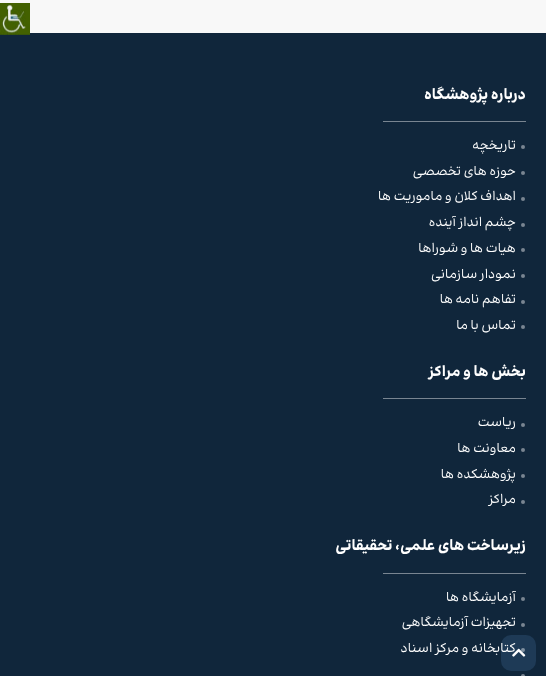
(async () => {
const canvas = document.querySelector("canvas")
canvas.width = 546
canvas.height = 676
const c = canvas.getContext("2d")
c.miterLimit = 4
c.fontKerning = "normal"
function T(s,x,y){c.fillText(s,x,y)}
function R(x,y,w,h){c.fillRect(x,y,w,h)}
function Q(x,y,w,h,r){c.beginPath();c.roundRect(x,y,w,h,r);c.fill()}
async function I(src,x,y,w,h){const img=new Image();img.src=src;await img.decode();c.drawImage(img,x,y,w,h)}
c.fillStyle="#f8f8f8"
R(0,0,546,676)
c.fillStyle="#10263b"
R(0,33,546,643)
await I("1.png",0,3,30,32)
c.direction="rtl"
c.font="bold 15.4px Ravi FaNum"
c.fillStyle="#fff"
T("درباره پژوهشگاه",526,99)
c.fillStyle="#798591"
R(383,121,143,1)
c.beginPath()
c.arc(523,147,2,0,7)
c.fill()
c.font="13.25px Ravi FaNum"
c.fillStyle="#fff"
T("تاریخچه",516,149)
c.fillStyle="#798591"
c.beginPath()
c.arc(523,173,2,0,7)
c.fill()
c.fillStyle="#fff"
T("حوزه های تخصصی",516,175)
c.fillStyle="#798591"
c.beginPath()
c.arc(523,199,2,0,7)
c.fill()
c.fillStyle="#fff"
T("اهداف کلان و ماموریت ها",516,200)
c.fillStyle="#798591"
c.beginPath()
c.arc(523,225,2,0,7)
c.fill()
c.fillStyle="#fff"
T("چشم انداز آینده",516,226)
c.fillStyle="#798591"
c.beginPath()
c.arc(523,250,2,0,7)
c.fill()
c.fillStyle="#fff"
T("هیات ها و شوراها",516,252)
c.fillStyle="#798591"
c.beginPath()
c.arc(523,276,2,0,7)
c.fill()
c.fillStyle="#fff"
T("نمودار سازمانی",516,278)
c.fillStyle="#798591"
c.beginPath()
c.arc(523,302,2,0,7)
c.fill()
c.fillStyle="#fff"
T("تفاهم نامه ها",516,303)
c.fillStyle="#798591"
c.beginPath()
c.arc(523,327,2,0,7)
c.fill()
c.fillStyle="#fff"
T("تماس با ما",516,329)
c.font="bold 15.4px Ravi FaNum"
T("بخش ها و مراکز",526,376)
c.fillStyle="#798591"
R(383,398,143,1)
c.beginPath()
c.arc(523,425,2,0,7)
c.fill()
c.font="13.25px Ravi FaNum"
c.fillStyle="#fff"
T("ریاست",516,426)
c.fillStyle="#798591"
c.beginPath()
c.arc(523,450,2,0,7)
c.fill()
c.fillStyle="#fff"
T("معاونت ها",516,452)
c.fillStyle="#798591"
c.beginPath()
c.arc(523,476,2,0,7)
c.fill()
c.fillStyle="#fff"
T("پژوهشکده ها",516,478)
c.fillStyle="#798591"
c.beginPath()
c.arc(523,502,2,0,7)
c.fill()
c.fillStyle="#fff"
T("مراکز",516,503)
c.font="bold 15.4px Ravi FaNum"
T("زیرساخت های علمی، تحقیقاتی",526,550)
c.fillStyle="#798591"
R(383,573,143,1)
c.beginPath()
c.arc(523,599,2,0,7)
c.fill()
c.font="13.25px Ravi FaNum"
c.fillStyle="#fff"
T("آزمایشگاه ها",516,601)
c.fillStyle="#798591"
c.beginPath()
c.arc(523,625,2,0,7)
c.fill()
c.fillStyle="#fff"
T("تجهیزات آزمایشگاهی",516,626)
c.fillStyle="#1e3a56"
Q(501,635,35,36,10)
await I("2.png",512,648,14,9)
c.fillStyle="#ffffff70"
c.beginPath()
c.arc(523,650,2,0,7)
c.fill()
c.fillStyle="#fff"
T("کتابخانه و مرکز اسناد",516,652)
c.fillStyle="#798591"
c.beginPath()
c.arc(523,676,2,0,7)
c.fill()
})()
